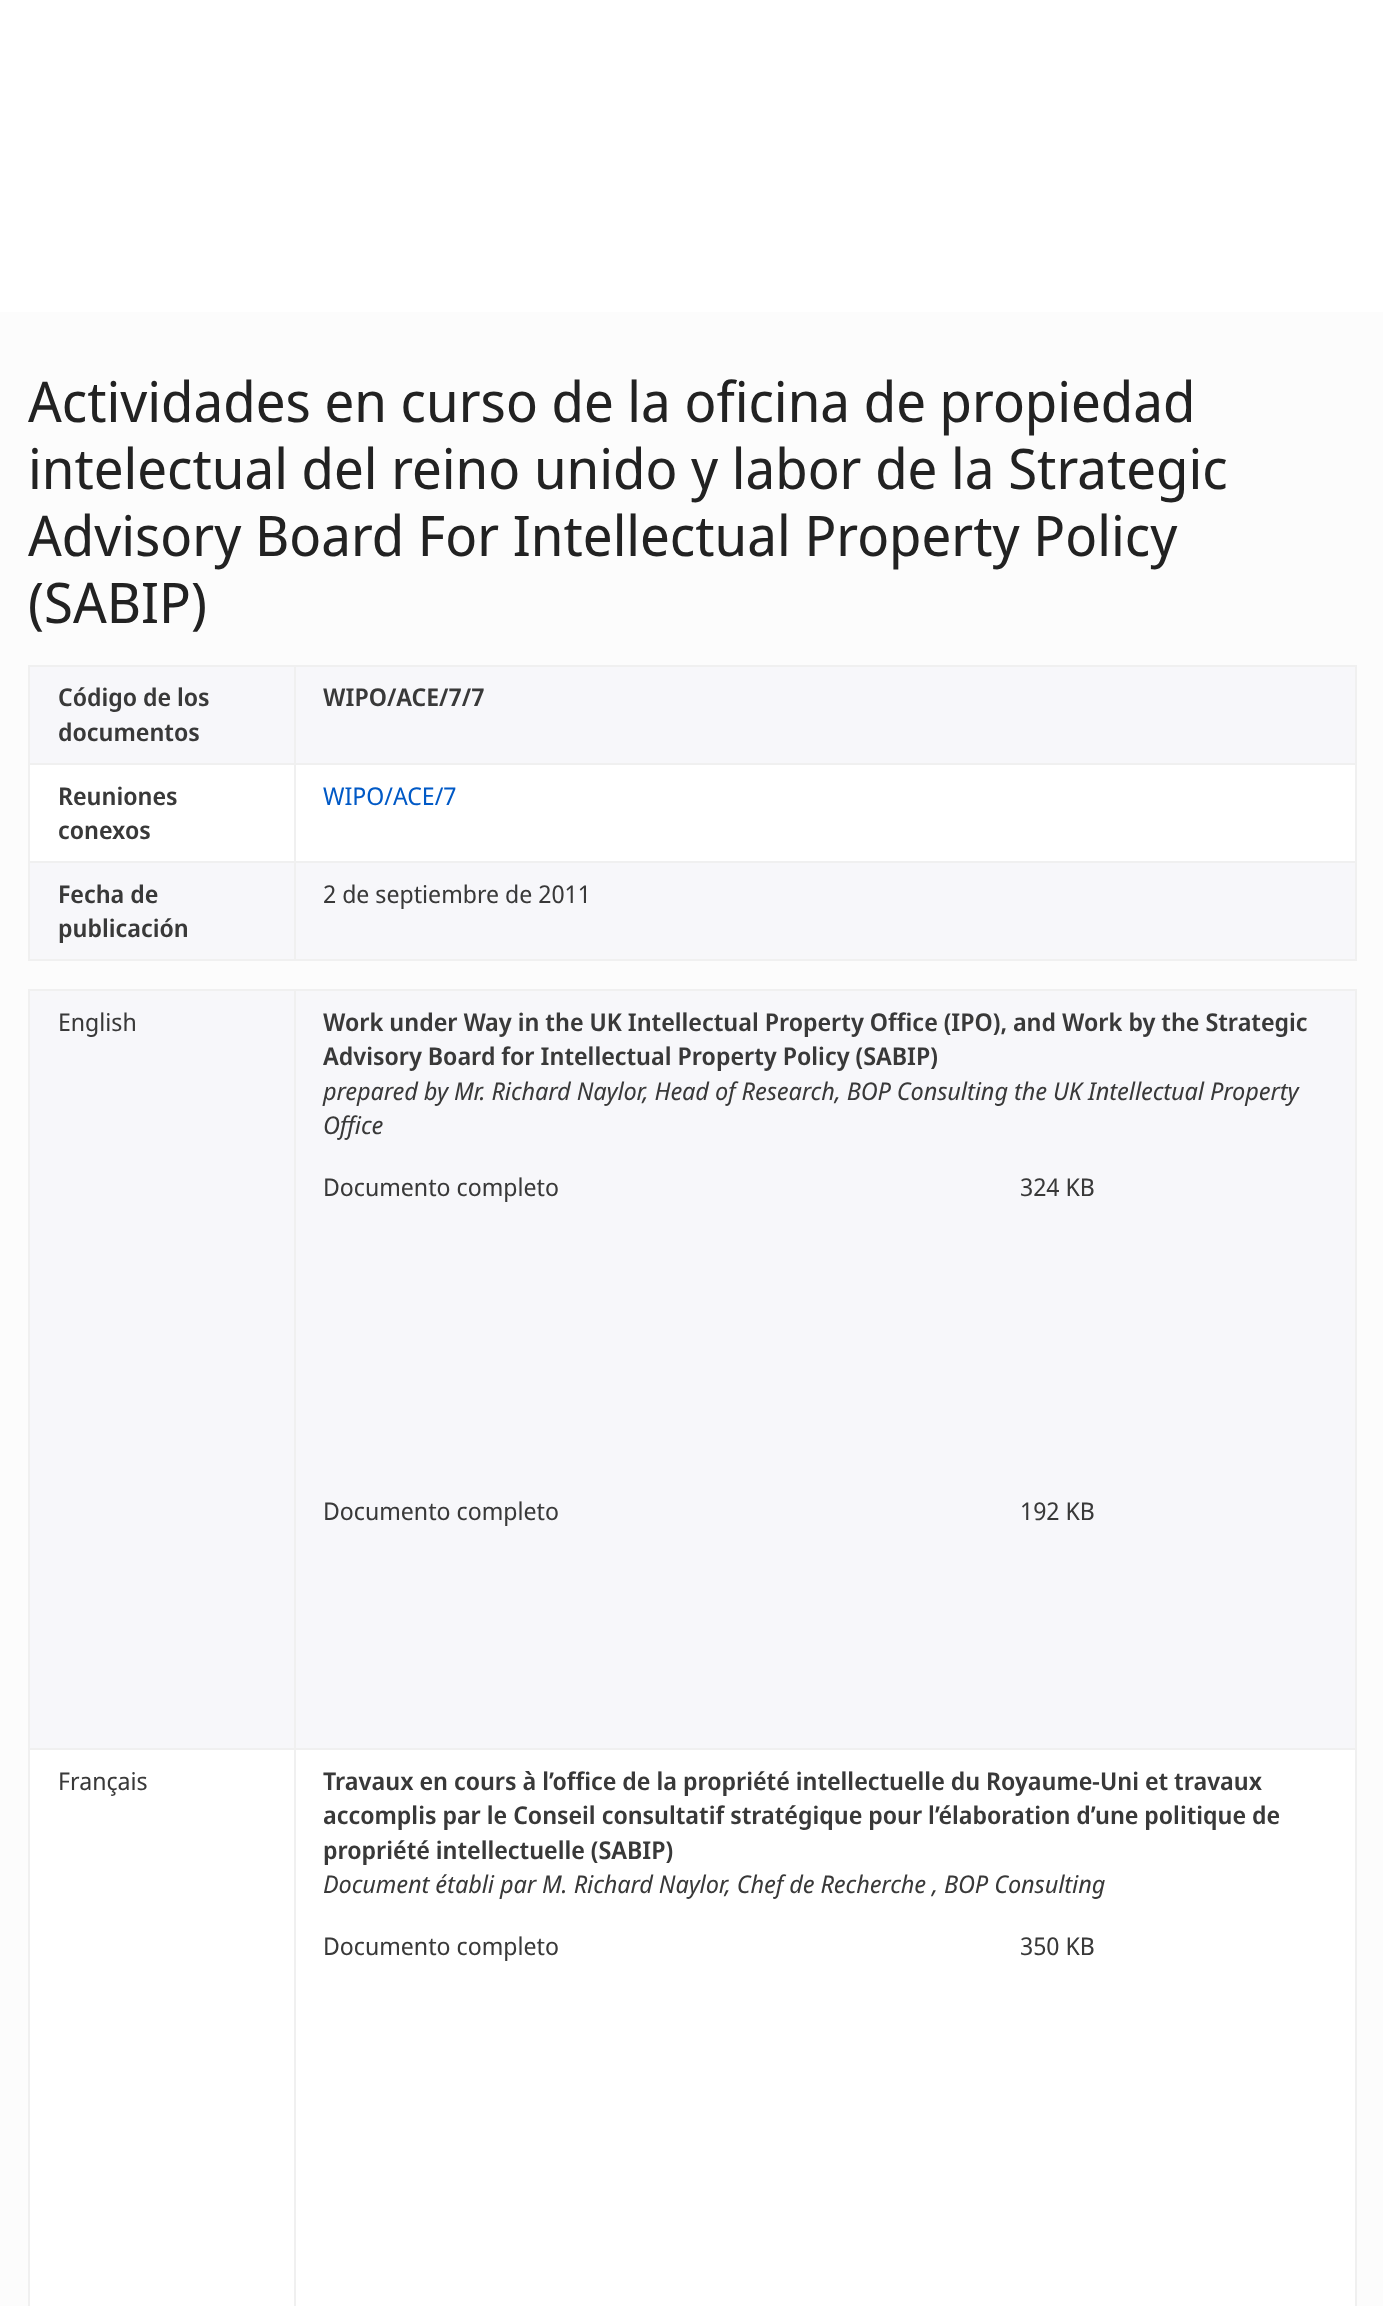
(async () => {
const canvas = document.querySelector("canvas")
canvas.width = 1383
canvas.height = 2306
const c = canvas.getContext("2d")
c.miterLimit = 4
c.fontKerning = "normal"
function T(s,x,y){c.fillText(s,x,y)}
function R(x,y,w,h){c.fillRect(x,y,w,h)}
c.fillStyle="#fcfcfc"
R(0,0,1383,2306)
c.fillStyle="#fff"
R(0,0,1383,312)
c.font="56px Noto Sans Display"
c.fillStyle="#222"
T("Actividades en curso de la oficina de propiedad",28,422)
T("intelectual del reino unido y labor de la Strategic",28,489)
T("Advisory Board For Intellectual Property Policy",28,556)
T("(SABIP)",28,623)
c.fillStyle="#fff"
R(30,765,1325,96)
c.fillStyle="#f0f0f0"
R(28,665,1328,2)
R(1355,665,2,296)
R(28,959,1328,2)
R(28,665,2,296)
c.fillStyle="#f7f7fa"
R(30,667,264,96)
c.font="600 24.5px Noto Sans Display"
c.fillStyle="#393939"
T("Código de los",58,706)
T("documentos",58,741)
c.fillStyle="#f7f7fa"
R(296,667,1059,96)
c.fillStyle="#393939"
T("WIPO/ACE/7/7",323,706)
c.fillStyle="#f0f0f0"
R(28,763,1328,2)
R(28,861,1328,2)
R(294,861,2,100)
R(294,665,2,198)
c.fillStyle="#393939"
T("Reuniones",58,805)
T("conexos",58,839)
c.font="24.5px Noto Sans Display"
c.fillStyle="#0059c6"
T("WIPO/ACE/7",323,805)
c.fillStyle="#f7f7fa"
R(30,863,264,96)
c.font="600 24.5px Noto Sans Display"
c.fillStyle="#393939"
T("Fecha de",58,903)
T("publicación",58,937)
c.fillStyle="#f7f7fa"
R(296,863,1059,96)
c.font="24.5px Noto Sans Display"
c.fillStyle="#393939"
T("2 de septiembre de 2011",323,903)
c.fillStyle="#fff"
R(30,1750,1325,556)
c.fillStyle="#f0f0f0"
R(28,989,1328,2)
R(1355,989,2,1317)
R(28,989,2,1317)
c.fillStyle="#f7f7fa"
R(30,991,264,757)
c.fillStyle="#393939"
T("English",58,1031)
c.fillStyle="#f7f7fa"
R(296,991,1059,757)
c.font="600 24.5px Noto Sans Display"
c.fillStyle="#393939"
T("Work under Way in the UK Intellectual Property Office (IPO), and Work by the Strategic",323,1031)
T("Advisory Board for Intellectual Property Policy (SABIP)",323,1065)
c.font="italic 24.5px Noto Sans Display"
T("prepared by Mr. Richard Naylor, Head of Research, BOP Consulting the UK Intellectual Property",323,1100)
T("Office",323,1134)
c.font="24.5px Noto Sans Display"
T("Documento completo",323,1196)
T("324 KB",1020,1196)
T("Documento completo",323,1520)
T("192 KB",1020,1520)
c.fillStyle="#f0f0f0"
R(28,1748,1328,2)
R(294,989,2,1317)
c.fillStyle="#393939"
T("Français",58,1790)
c.font="600 24.5px Noto Sans Display"
T("Travaux en cours à l’office de la propriété intellectuelle du Royaume",323,1790)
c.font="600 24.5px Noto Sans"
T("‑",1092,1790)
c.font="600 24.5px Noto Sans Display"
T("Uni et travaux",1100,1790)
T("accomplis par le Conseil consultatif stratégique pour l’élaboration d’une politique de",323,1824)
T("propriété intellectuelle (SABIP)",323,1859)
c.font="italic 24.5px Noto Sans Display"
T("Document établi par M. Richard Naylor, Chef de Recherche , BOP Consulting",323,1893)
c.font="24.5px Noto Sans Display"
T("Documento completo",323,1955)
T("350 KB",1020,1955)
})()
